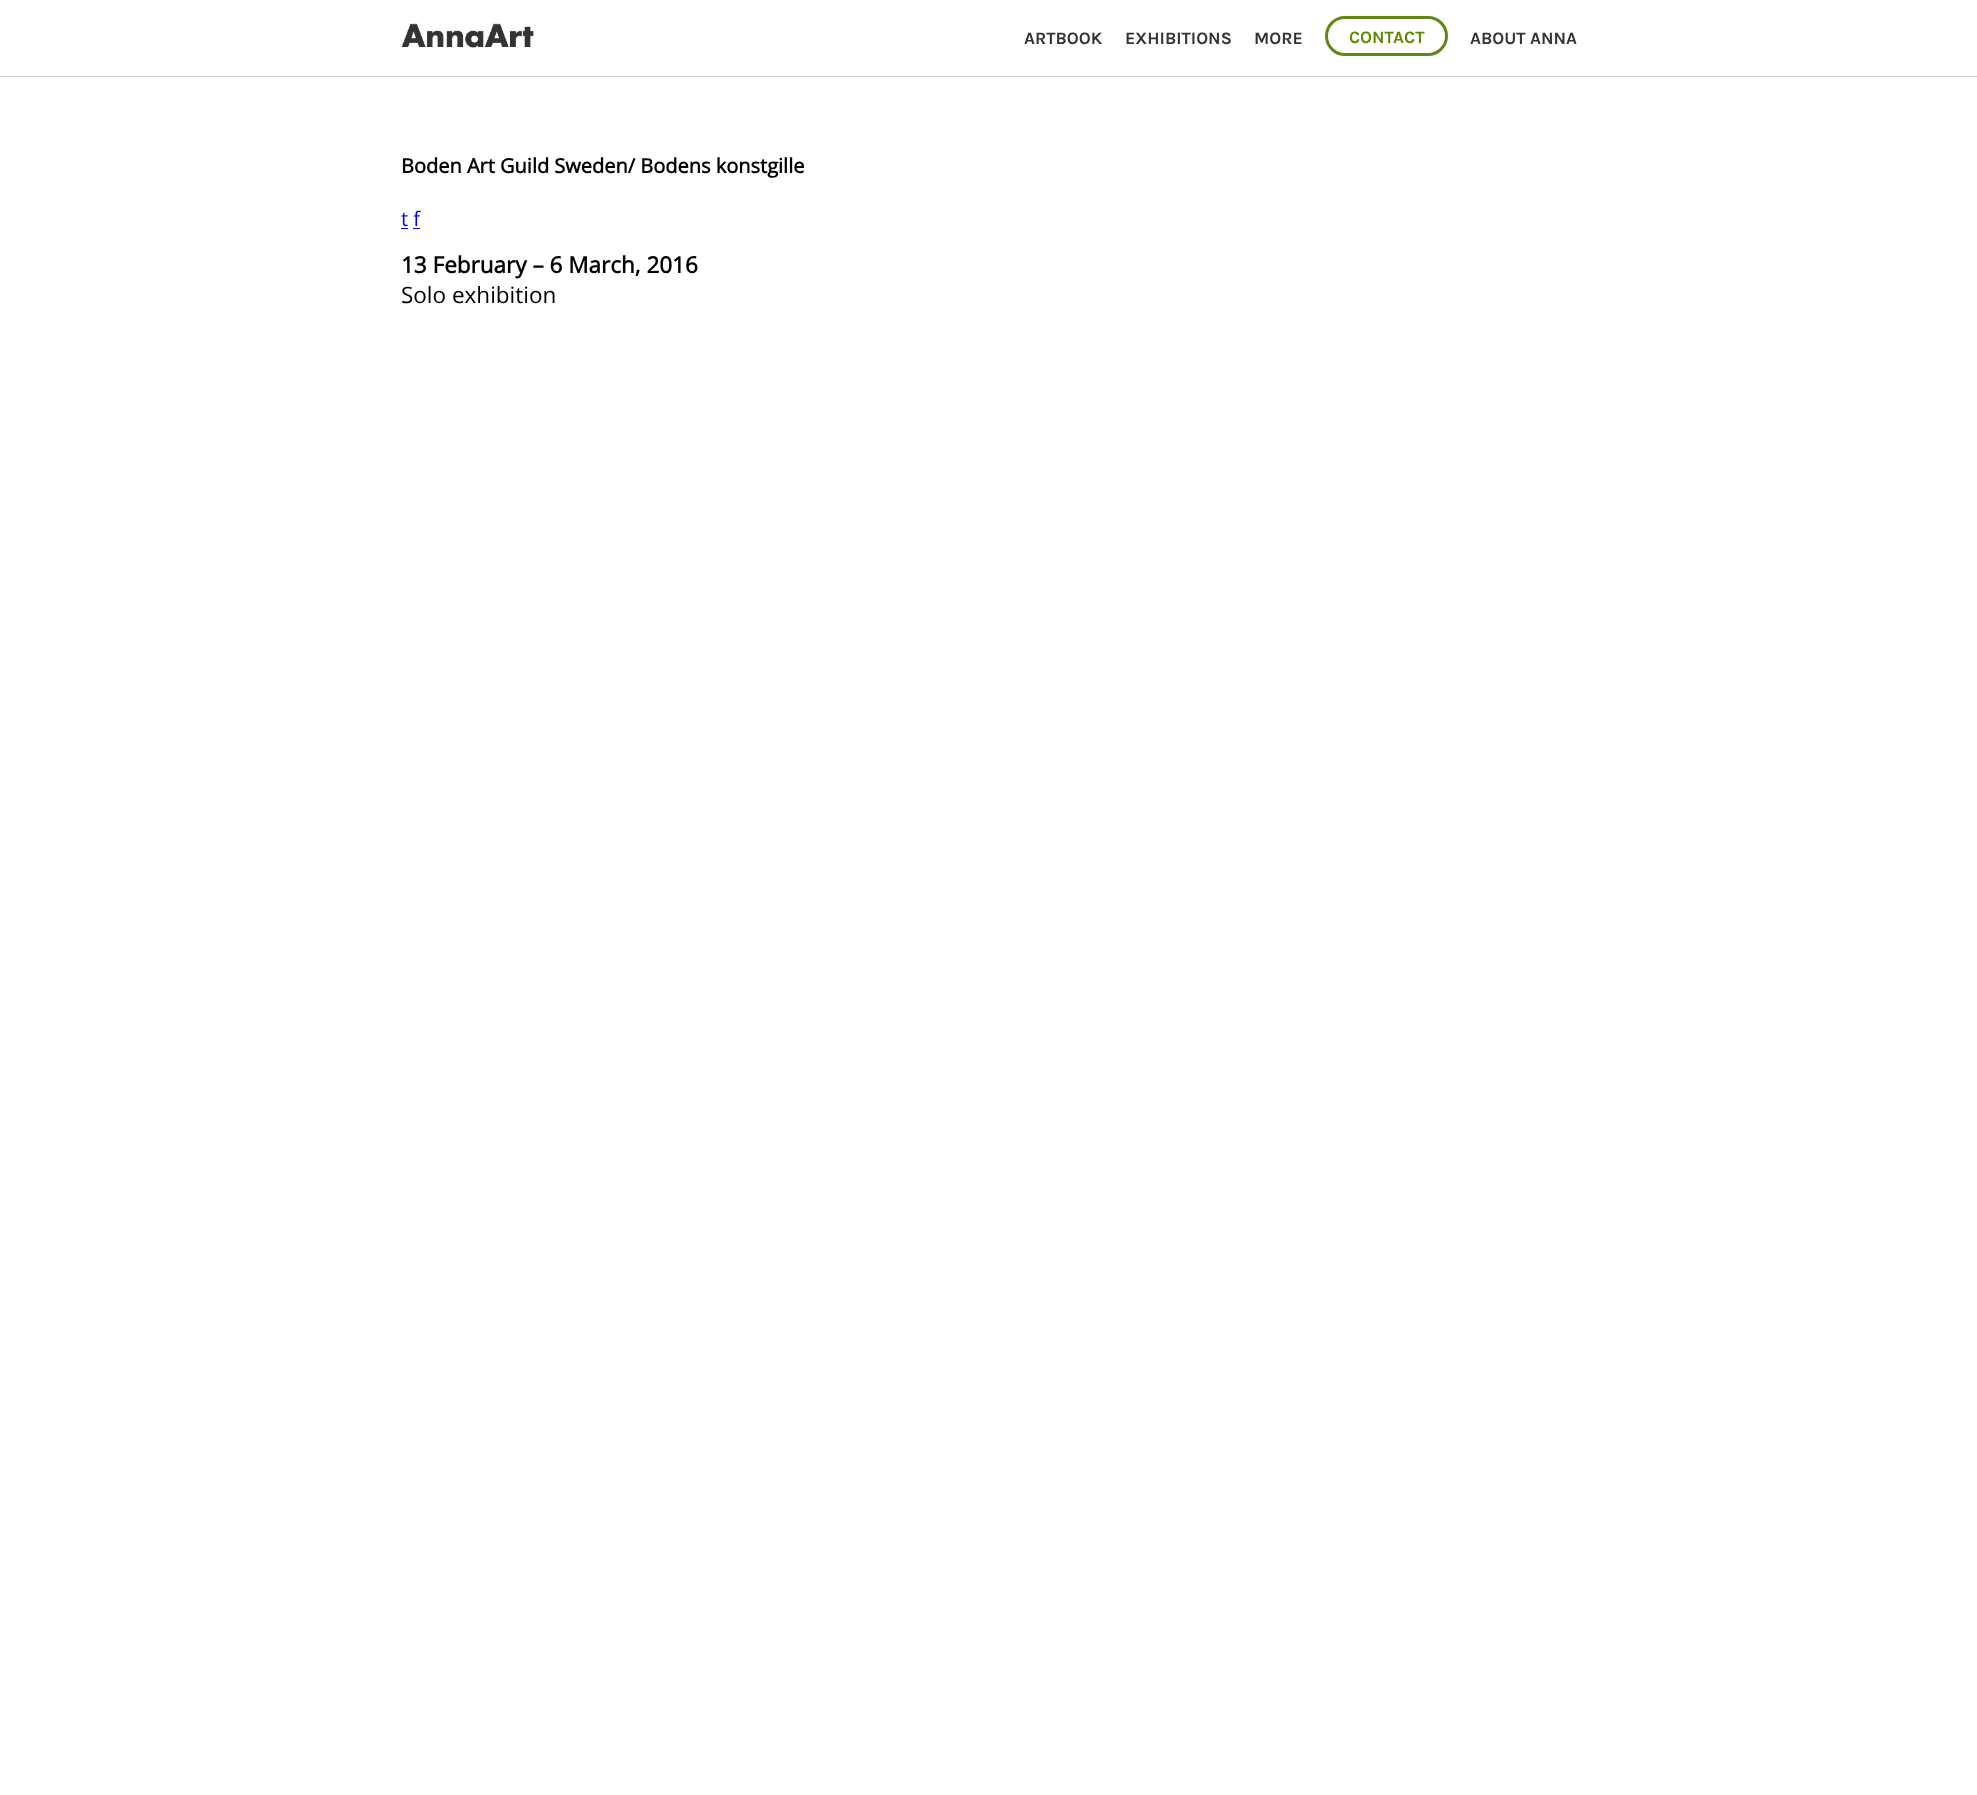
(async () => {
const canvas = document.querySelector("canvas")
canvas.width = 1977
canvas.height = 1795
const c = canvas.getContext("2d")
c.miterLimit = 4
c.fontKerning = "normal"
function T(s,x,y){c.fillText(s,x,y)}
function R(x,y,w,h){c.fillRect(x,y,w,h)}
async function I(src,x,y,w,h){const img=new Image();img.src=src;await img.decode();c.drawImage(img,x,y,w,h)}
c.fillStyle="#fff"
R(0,0,1977,1795)
c.fillStyle="#ccc"
R(0,76,1977,1)
await I("1.png",401,23,133,25)
c.font="bold 17.5px Karla"
c.fillStyle="#333"
T("ARTBOOK",1024,44)
T("EXHIBITIONS",1125,44)
T("MORE",1254,44)
c.beginPath()
c.roundRect(1326.5,17.5,120,37,18.5)
c.strokeStyle="#608816"
c.lineWidth=3
c.stroke()
c.fillStyle="#5f8900"
T("CONTACT",1349,43)
c.fillStyle="#333"
T("ABOUT ANNA",1470,44)
c.font="bold 20px Open Sans"
c.fillStyle="#000"
T("Boden Art Guild Sweden/ Bodens konstgille",401,173)
c.font="20px Open Sans"
c.fillStyle="#00e"
T("t f",401,226)
R(401,228,7,1)
R(413,228,7,1)
c.font="bold 22.5px Open Sans"
c.fillStyle="#000"
T("13 February – 6 March, 2016",401,273)
c.font="22.5px Open Sans"
T("Solo exhibition",401,303)
})()
